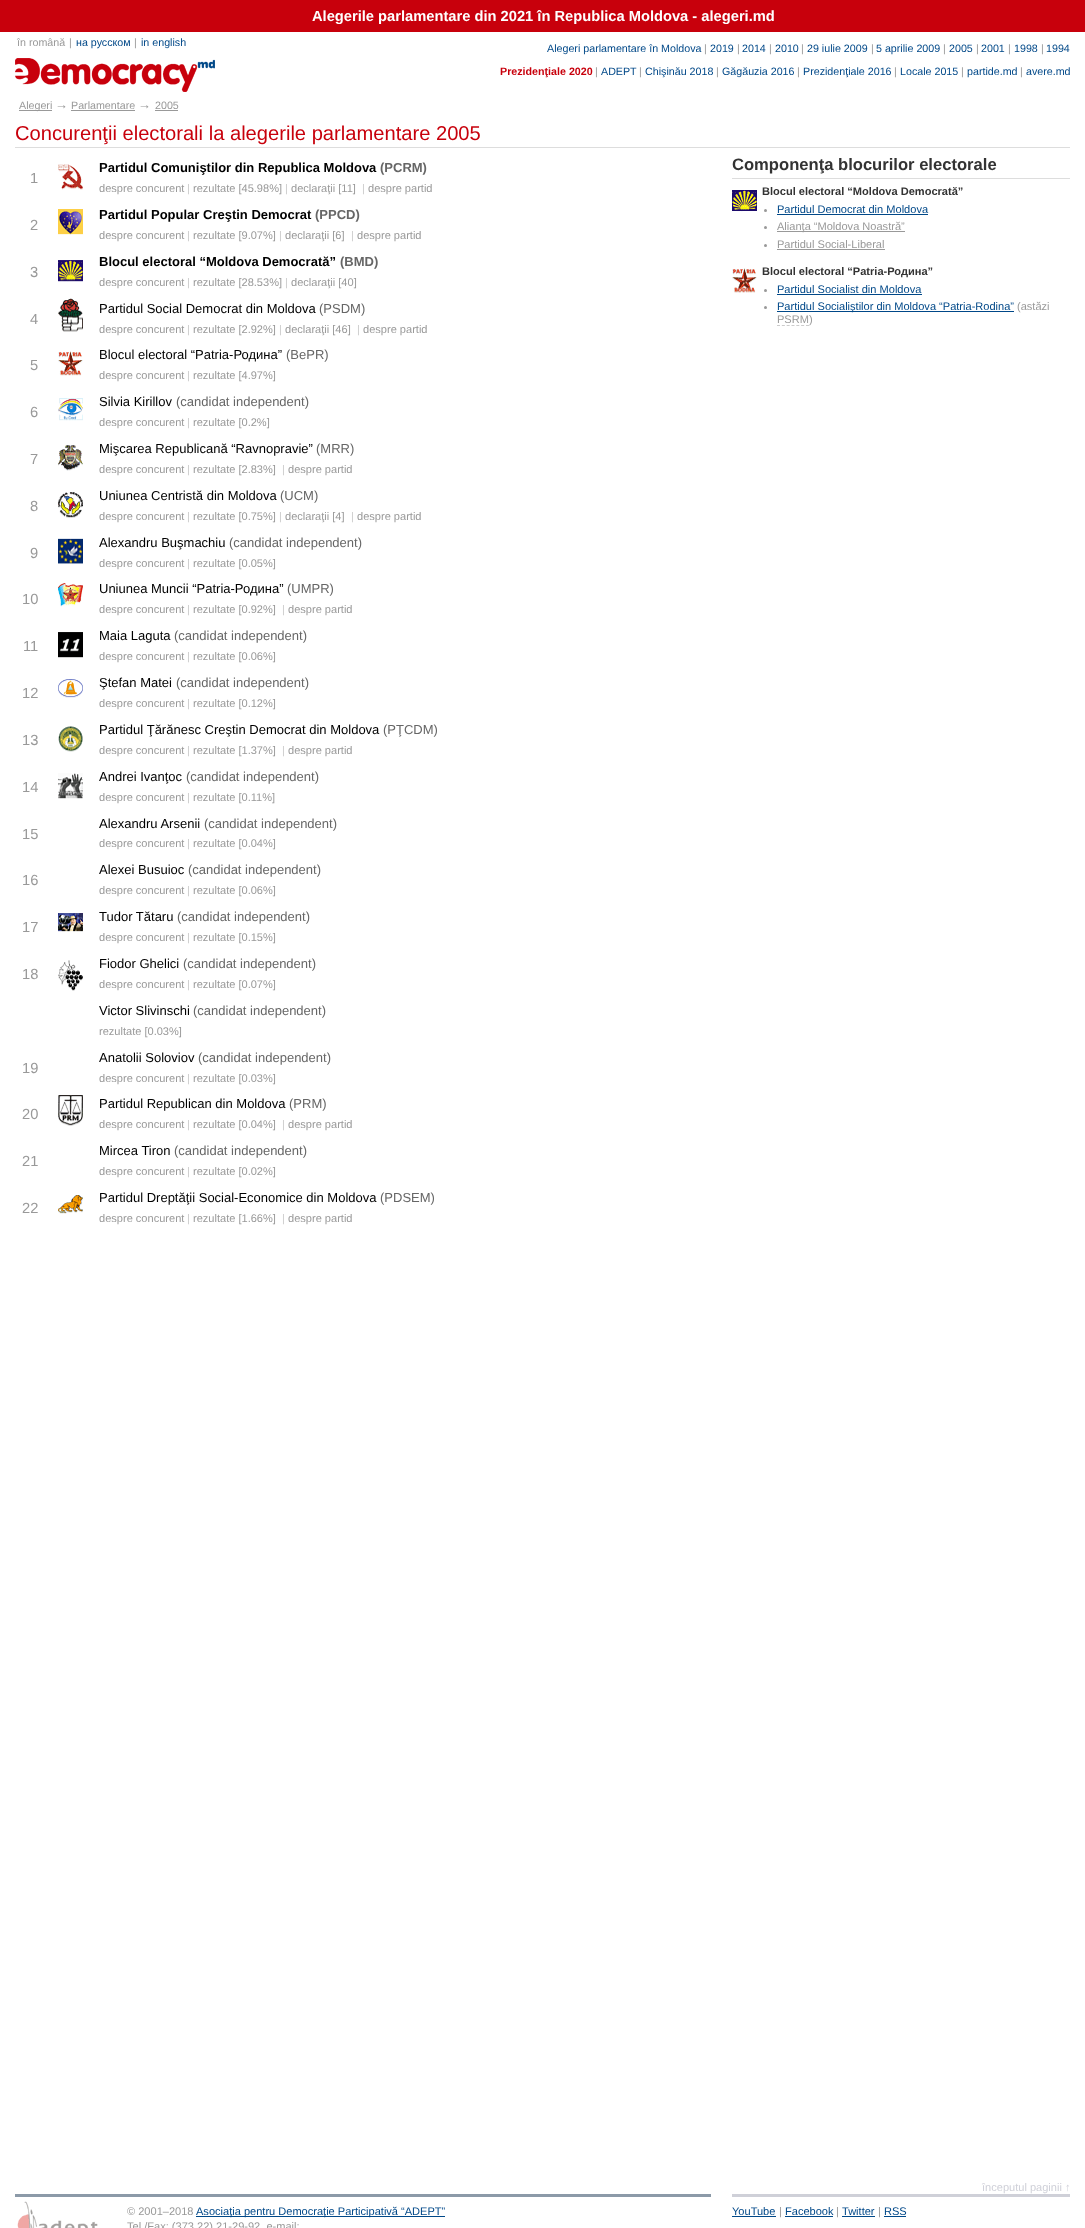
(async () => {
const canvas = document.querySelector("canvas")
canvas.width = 1085
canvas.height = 2228
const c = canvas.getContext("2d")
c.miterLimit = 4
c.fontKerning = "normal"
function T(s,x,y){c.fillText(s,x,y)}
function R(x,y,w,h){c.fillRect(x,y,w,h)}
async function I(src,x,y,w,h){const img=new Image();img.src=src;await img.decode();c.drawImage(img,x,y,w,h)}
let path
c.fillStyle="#fff"
R(0,0,1085,2228)
c.fillStyle="#c8000c"
R(0,0,1085,32)
c.font="bold 14.7px Liberation Sans"
c.fillStyle="#fff"
T("Alegerile parlamentare din 2021 în Republica Moldova - alegeri.md",312,21)
c.font="10.7px Liberation Sans"
c.fillStyle="#999"
T("în română",17,46)
T("|",69,46)
c.fillStyle="#004888"
T("на русском",76,46)
c.fillStyle="#999"
T("|",134,46)
c.fillStyle="#004888"
T("in english",141,46)
await I("1.png",15,58,200,34)
T("Alegeri parlamentare în Moldova",547,52)
c.fillStyle="#999"
T("|",704,52)
c.fillStyle="#004888"
T("2019",710,52)
c.fillStyle="#999"
T("|",737,52)
c.fillStyle="#004888"
T("2014",742,52)
c.fillStyle="#999"
T("|",769,52)
c.fillStyle="#004888"
T("2010",775,52)
c.fillStyle="#999"
T("|",801,52)
c.fillStyle="#004888"
T("29 iulie 2009",807,52)
c.fillStyle="#999"
T("|",871,52)
c.fillStyle="#004888"
T("5 aprilie 2009",876,52)
c.fillStyle="#999"
T("|",943,52)
c.fillStyle="#004888"
T("2005",949,52)
c.fillStyle="#999"
T("|",976,52)
c.fillStyle="#004888"
T("2001",981,52)
c.fillStyle="#999"
T("|",1008,52)
c.fillStyle="#004888"
T("1998",1014,52)
c.fillStyle="#999"
T("|",1041,52)
c.fillStyle="#004888"
T("1994",1046,52)
c.font="bold 10.7px Liberation Sans"
c.fillStyle="#c8000c"
T("Prezidenţiale 2020",500,75)
c.font="10.7px Liberation Sans"
c.fillStyle="#999"
T("|",595,75)
c.fillStyle="#004888"
T("ADEPT",601,75)
c.fillStyle="#999"
T("|",639,75)
c.fillStyle="#004888"
T("Chişinău 2018",645,75)
c.fillStyle="#999"
T("|",716,75)
c.fillStyle="#004888"
T("Găgăuzia 2016",722,75)
c.fillStyle="#999"
T("|",797,75)
c.fillStyle="#004888"
T("Prezidenţiale 2016",803,75)
c.fillStyle="#999"
T("|",894,75)
c.fillStyle="#004888"
T("Locale 2015",900,75)
c.fillStyle="#999"
T("|",961,75)
c.fillStyle="#004888"
T("partide.md",967,75)
c.fillStyle="#999"
T("|",1020,75)
c.fillStyle="#004888"
T("avere.md",1026,75)
c.fillStyle="#999"
R(19,110,33,1)
T("Alegeri",19,109)
c.font="13px Liberation Sans"
T("→",55,109)
c.font="10.7px Liberation Sans"
T("Parlamentare",71,109)
R(71,110,64,1)
c.font="13px Liberation Sans"
T("→",138,109)
c.font="10.7px Liberation Sans"
T("2005",155,109)
R(155,110,23,1)
c.fillStyle="#ddd"
R(15,147,1055,1)
c.font="20.15px Liberation Sans"
c.fillStyle="#c8000c"
T("Concurenţii electorali la alegerile parlamentare 2005",15,140)
c.font="14.7px Liberation Sans"
c.fillStyle="#999"
T("1",30,183)
await I("2.png",58,164,25,26)
c.font="bold 13px Liberation Sans"
c.fillStyle="#000"
T("Partidul Comuniştilor din Republica Moldova",99,172)
c.fillStyle="#666"
T("(PCRM)",380,172)
c.font="11.05px Liberation Sans"
c.fillStyle="#999"
T("despre concurent",99,192)
c.fillStyle="#ccc"
T("|",187,192)
c.fillStyle="#999"
T("rezultate [45.98%]",193,192)
c.fillStyle="#ccc"
T("|",285,192)
c.fillStyle="#999"
T("declaraţii [11]",291,192)
c.fillStyle="#ccc"
T("|",362,192)
c.fillStyle="#999"
T("despre partid",368,192)
c.font="14.7px Liberation Sans"
T("2",30,230)
await I("3.png",58,209,25,26)
c.font="bold 13px Liberation Sans"
c.fillStyle="#000"
T("Partidul Popular Creştin Democrat",99,219)
c.fillStyle="#666"
T("(PPCD)",315,219)
c.font="11.05px Liberation Sans"
c.fillStyle="#999"
T("despre concurent",99,239)
c.fillStyle="#ccc"
T("|",187,239)
c.fillStyle="#999"
T("rezultate [9.07%]",193,239)
c.fillStyle="#ccc"
T("|",279,239)
c.fillStyle="#999"
T("declaraţii [6]",285,239)
c.fillStyle="#ccc"
T("|",351,239)
c.fillStyle="#999"
T("despre partid",357,239)
c.font="14.7px Liberation Sans"
T("3",30,277)
await I("4.png",58,260,25,22)
c.font="bold 13px Liberation Sans"
c.fillStyle="#000"
T("Blocul electoral “Moldova Democrată”",99,266)
c.fillStyle="#666"
T("(BMD)",340,266)
c.font="11.05px Liberation Sans"
c.fillStyle="#999"
T("despre concurent",99,286)
c.fillStyle="#ccc"
T("|",187,286)
c.fillStyle="#999"
T("rezultate [28.53%]",193,286)
c.fillStyle="#ccc"
T("|",285,286)
c.fillStyle="#999"
T("declaraţii [40]",291,286)
c.font="14.7px Liberation Sans"
T("4",30,324)
await I("5.png",58,298,25,34)
c.font="13px Liberation Sans"
c.fillStyle="#000"
T("Partidul Social Democrat din Moldova",99,313)
c.fillStyle="#666"
T("(PSDM)",319,313)
c.font="11.05px Liberation Sans"
c.fillStyle="#999"
T("despre concurent",99,333)
c.fillStyle="#ccc"
T("|",187,333)
c.fillStyle="#999"
T("rezultate [2.92%]",193,333)
c.fillStyle="#ccc"
T("|",279,333)
c.fillStyle="#999"
T("declaraţii [46]",285,333)
c.fillStyle="#ccc"
T("|",357,333)
c.fillStyle="#999"
T("despre partid",363,333)
c.font="14.7px Liberation Sans"
T("5",30,370)
await I("6.png",58,351,25,25)
c.font="13px Liberation Sans"
c.fillStyle="#000"
T("Blocul electoral “Patria-Родина”",99,359)
c.fillStyle="#666"
T("(BePR)",286,359)
c.font="11.05px Liberation Sans"
c.fillStyle="#999"
T("despre concurent",99,379)
c.fillStyle="#ccc"
T("|",187,379)
c.fillStyle="#999"
T("rezultate [4.97%]",193,379)
c.font="14.7px Liberation Sans"
T("6",30,417)
await I("7.png",58,398,25,23)
c.font="13px Liberation Sans"
c.fillStyle="#000"
T("Silvia Kirillov",99,406)
c.fillStyle="#666"
T("(candidat independent)",176,406)
c.font="11.05px Liberation Sans"
c.fillStyle="#999"
T("despre concurent",99,426)
c.fillStyle="#ccc"
T("|",187,426)
c.fillStyle="#999"
T("rezultate [0.2%]",193,426)
c.font="14.7px Liberation Sans"
T("7",30,464)
await I("8.png",58,445,25,26)
c.font="13px Liberation Sans"
c.fillStyle="#000"
T("Mişcarea Republicană “Ravnopravie”",99,453)
c.fillStyle="#666"
T("(MRR)",316,453)
c.font="11.05px Liberation Sans"
c.fillStyle="#999"
T("despre concurent",99,473)
c.fillStyle="#ccc"
T("|",187,473)
c.fillStyle="#999"
T("rezultate [2.83%]",193,473)
c.fillStyle="#ccc"
T("|",282,473)
c.fillStyle="#999"
T("despre partid",288,473)
c.font="14.7px Liberation Sans"
T("8",30,511)
await I("9.png",58,492,25,26)
c.font="13px Liberation Sans"
c.fillStyle="#000"
T("Uniunea Centristă din Moldova",99,500)
c.fillStyle="#666"
T("(UCM)",280,500)
c.font="11.05px Liberation Sans"
c.fillStyle="#999"
T("despre concurent",99,520)
c.fillStyle="#ccc"
T("|",187,520)
c.fillStyle="#999"
T("rezultate [0.75%]",193,520)
c.fillStyle="#ccc"
T("|",279,520)
c.fillStyle="#999"
T("declaraţii [4]",285,520)
c.fillStyle="#ccc"
T("|",351,520)
c.fillStyle="#999"
T("despre partid",357,520)
c.font="14.7px Liberation Sans"
T("9",30,558)
await I("10.png",58,538,25,26)
c.font="13px Liberation Sans"
c.fillStyle="#000"
T("Alexandru Buşmachiu",99,547)
c.fillStyle="#666"
T("(candidat independent)",229,547)
c.font="11.05px Liberation Sans"
c.fillStyle="#999"
T("despre concurent",99,567)
c.fillStyle="#ccc"
T("|",187,567)
c.fillStyle="#999"
T("rezultate [0.05%]",193,567)
c.font="14.7px Liberation Sans"
T("10",22,604)
await I("11.png",58,583,25,24)
c.font="13px Liberation Sans"
c.fillStyle="#000"
T("Uniunea Muncii “Patria-Родина”",99,593)
c.fillStyle="#666"
T("(UMPR)",287,593)
c.font="11.05px Liberation Sans"
c.fillStyle="#999"
T("despre concurent",99,613)
c.fillStyle="#ccc"
T("|",187,613)
c.fillStyle="#999"
T("rezultate [0.92%]",193,613)
c.fillStyle="#ccc"
T("|",282,613)
c.fillStyle="#999"
T("despre partid",288,613)
c.font="14.7px Liberation Sans"
T("11",23,651)
await I("12.png",58,632,25,26)
c.font="13px Liberation Sans"
c.fillStyle="#000"
T("Maia Laguta",99,640)
c.fillStyle="#666"
T("(candidat independent)",174,640)
c.font="11.05px Liberation Sans"
c.fillStyle="#999"
T("despre concurent",99,660)
c.fillStyle="#ccc"
T("|",187,660)
c.fillStyle="#999"
T("rezultate [0.06%]",193,660)
c.font="14.7px Liberation Sans"
T("12",22,698)
await I("13.png",58,679,25,19)
c.font="13px Liberation Sans"
c.fillStyle="#000"
T("Ştefan Matei",99,687)
c.fillStyle="#666"
T("(candidat independent)",176,687)
c.font="11.05px Liberation Sans"
c.fillStyle="#999"
T("despre concurent",99,707)
c.fillStyle="#ccc"
T("|",187,707)
c.fillStyle="#999"
T("rezultate [0.12%]",193,707)
c.font="14.7px Liberation Sans"
T("13",22,745)
await I("14.png",58,726,25,26)
c.font="13px Liberation Sans"
c.fillStyle="#000"
T("Partidul Ţărănesc Creştin Democrat din Moldova",99,734)
c.fillStyle="#666"
T("(PŢCDM)",383,734)
c.font="11.05px Liberation Sans"
c.fillStyle="#999"
T("despre concurent",99,754)
c.fillStyle="#ccc"
T("|",187,754)
c.fillStyle="#999"
T("rezultate [1.37%]",193,754)
c.fillStyle="#ccc"
T("|",282,754)
c.fillStyle="#999"
T("despre partid",288,754)
c.font="14.7px Liberation Sans"
T("14",22,792)
await I("15.png",58,773,25,26)
c.font="13px Liberation Sans"
c.fillStyle="#000"
T("Andrei Ivanţoc",99,781)
c.fillStyle="#666"
T("(candidat independent)",186,781)
c.font="11.05px Liberation Sans"
c.fillStyle="#999"
T("despre concurent",99,801)
c.fillStyle="#ccc"
T("|",187,801)
c.fillStyle="#999"
T("rezultate [0.11%]",193,801)
c.font="14.7px Liberation Sans"
T("15",22,839)
c.font="13px Liberation Sans"
c.fillStyle="#000"
T("Alexandru Arsenii",99,828)
c.fillStyle="#666"
T("(candidat independent)",204,828)
c.font="11.05px Liberation Sans"
c.fillStyle="#999"
T("despre concurent",99,847)
c.fillStyle="#ccc"
T("|",187,847)
c.fillStyle="#999"
T("rezultate [0.04%]",193,847)
c.font="14.7px Liberation Sans"
T("16",22,885)
c.font="13px Liberation Sans"
c.fillStyle="#000"
T("Alexei Busuioc",99,874)
c.fillStyle="#666"
T("(candidat independent)",188,874)
c.font="11.05px Liberation Sans"
c.fillStyle="#999"
T("despre concurent",99,894)
c.fillStyle="#ccc"
T("|",187,894)
c.fillStyle="#999"
T("rezultate [0.06%]",193,894)
c.font="14.7px Liberation Sans"
T("17",22,932)
await I("16.png",58,913,25,19)
c.font="13px Liberation Sans"
c.fillStyle="#000"
T("Tudor Tătaru",99,921)
c.fillStyle="#666"
T("(candidat independent)",177,921)
c.font="11.05px Liberation Sans"
c.fillStyle="#999"
T("despre concurent",99,941)
c.fillStyle="#ccc"
T("|",187,941)
c.fillStyle="#999"
T("rezultate [0.15%]",193,941)
c.font="14.7px Liberation Sans"
T("18",22,979)
await I("17.png",58,960,25,31)
c.font="13px Liberation Sans"
c.fillStyle="#000"
T("Fiodor Ghelici",99,968)
c.fillStyle="#666"
T("(candidat independent)",183,968)
c.font="11.05px Liberation Sans"
c.fillStyle="#999"
T("despre concurent",99,988)
c.fillStyle="#ccc"
T("|",187,988)
c.fillStyle="#999"
T("rezultate [0.07%]",193,988)
c.font="13px Liberation Sans"
c.fillStyle="#000"
T("Victor Slivinschi",99,1015)
c.fillStyle="#666"
T("(candidat independent)",193,1015)
c.font="11.05px Liberation Sans"
c.fillStyle="#999"
T("rezultate [0.03%]",99,1035)
c.font="14.7px Liberation Sans"
T("19",22,1073)
c.font="13px Liberation Sans"
c.fillStyle="#000"
T("Anatolii Soloviov",99,1062)
c.fillStyle="#666"
T("(candidat independent)",198,1062)
c.font="11.05px Liberation Sans"
c.fillStyle="#999"
T("despre concurent",99,1082)
c.fillStyle="#ccc"
T("|",187,1082)
c.fillStyle="#999"
T("rezultate [0.03%]",193,1082)
c.font="14.7px Liberation Sans"
T("20",22,1119)
await I("18.png",58,1095,25,31)
c.font="13px Liberation Sans"
c.fillStyle="#000"
T("Partidul Republican din Moldova",99,1108)
c.fillStyle="#666"
T("(PRM)",289,1108)
c.font="11.05px Liberation Sans"
c.fillStyle="#999"
T("despre concurent",99,1128)
c.fillStyle="#ccc"
T("|",187,1128)
c.fillStyle="#999"
T("rezultate [0.04%]",193,1128)
c.fillStyle="#ccc"
T("|",282,1128)
c.fillStyle="#999"
T("despre partid",288,1128)
c.font="14.7px Liberation Sans"
T("21",22,1166)
c.font="13px Liberation Sans"
c.fillStyle="#000"
T("Mircea Tiron",99,1155)
c.fillStyle="#666"
T("(candidat independent)",174,1155)
c.font="11.05px Liberation Sans"
c.fillStyle="#999"
T("despre concurent",99,1175)
c.fillStyle="#ccc"
T("|",187,1175)
c.fillStyle="#999"
T("rezultate [0.02%]",193,1175)
c.font="14.7px Liberation Sans"
T("22",22,1213)
await I("19.png",58,1195,25,19)
c.font="13px Liberation Sans"
c.fillStyle="#000"
T("Partidul Dreptăţii Social-Economice din Moldova",99,1202)
c.fillStyle="#666"
T("(PDSEM)",380,1202)
c.font="11.05px Liberation Sans"
c.fillStyle="#999"
T("despre concurent",99,1222)
c.fillStyle="#ccc"
T("|",187,1222)
c.fillStyle="#999"
T("rezultate [1.66%]",193,1222)
c.fillStyle="#ccc"
T("|",282,1222)
c.fillStyle="#999"
T("despre partid",288,1222)
c.fillStyle="#ddd"
R(732,178,338,1)
c.font="bold 16.6px Liberation Sans"
c.fillStyle="#333"
T("Componenţa blocurilor electorale",732,170)
await I("20.png",732,190,25,22)
c.font="bold 11.05px Liberation Sans"
T("Blocul electoral “Moldova Democrată”",762,195)
c.fillStyle="#999"
c.beginPath()
c.arc(765.5,210.5,1.5,0,7)
c.fill()
c.font="11.05px Liberation Sans"
c.fillStyle="#004888"
T("Partidul Democrat din Moldova",777,213)
R(777,214,151,1)
c.fillStyle="#999"
c.beginPath()
c.arc(765.5,227.5,1.5,0,7)
c.fill()
R(777,231,128,1)
T("Alianţa “Moldova Noastră”",777,230)
c.beginPath()
c.arc(765.5,245.5,1.5,0,7)
c.fill()
T("Partidul Social-Liberal",777,248)
R(777,249,108,1)
await I("21.png",732,268,25,25)
c.font="bold 11.05px Liberation Sans"
c.fillStyle="#333"
T("Blocul electoral “Patria-Родина”",762,275)
c.fillStyle="#999"
c.beginPath()
c.arc(765.5,290.5,1.5,0,7)
c.fill()
c.font="11.05px Liberation Sans"
c.fillStyle="#004888"
T("Partidul Socialist din Moldova",777,293)
R(777,294,145,1)
c.fillStyle="#999"
c.beginPath()
c.arc(765.5,307.5,1.5,0,7)
c.fill()
c.fillStyle="#004888"
R(777,311,237,1)
T("Partidul Socialiştilor din Moldova “Patria-Rodina”",777,310)
c.fillStyle="#999"
T("(astăzi",1017,310)
path = new Path2D("M777 325.5h32")
c.strokeStyle="#ccc"
c.setLineDash([3,1.83])
c.stroke(path)
T("PSRM)",777,323)
c.fillStyle="#cfd0d8"
T("începutul paginii ↑",982,2191)
c.fillStyle="#8c9aa8"
R(15,2194,696,3)
await I("22.png",17,2201,81,27)
c.fillStyle="#999"
T("© 2001–2018",127,2215)
c.fillStyle="#004888"
R(196,2216,249,1)
T("Asociaţia pentru Democraţie Participativă “ADEPT”",196,2215)
c.fillStyle="#999"
T("Tel./Fax: (373 22) 21-29-92, e-mail:",127,2230)
c.fillStyle="#cfd0d8"
R(732,2194,338,3)
c.fillStyle="#004888"
T("YouTube",732,2215)
R(732,2216,44,1)
c.fillStyle="#999"
T("|",779,2215)
c.fillStyle="#004888"
T("Facebook",785,2215)
R(785,2216,48,1)
c.fillStyle="#999"
T("|",836,2215)
c.fillStyle="#004888"
T("Twitter",842,2215)
R(842,2216,33,1)
c.fillStyle="#999"
T("|",878,2215)
c.fillStyle="#004888"
T("RSS",884,2215)
R(884,2216,22,1)
})()
